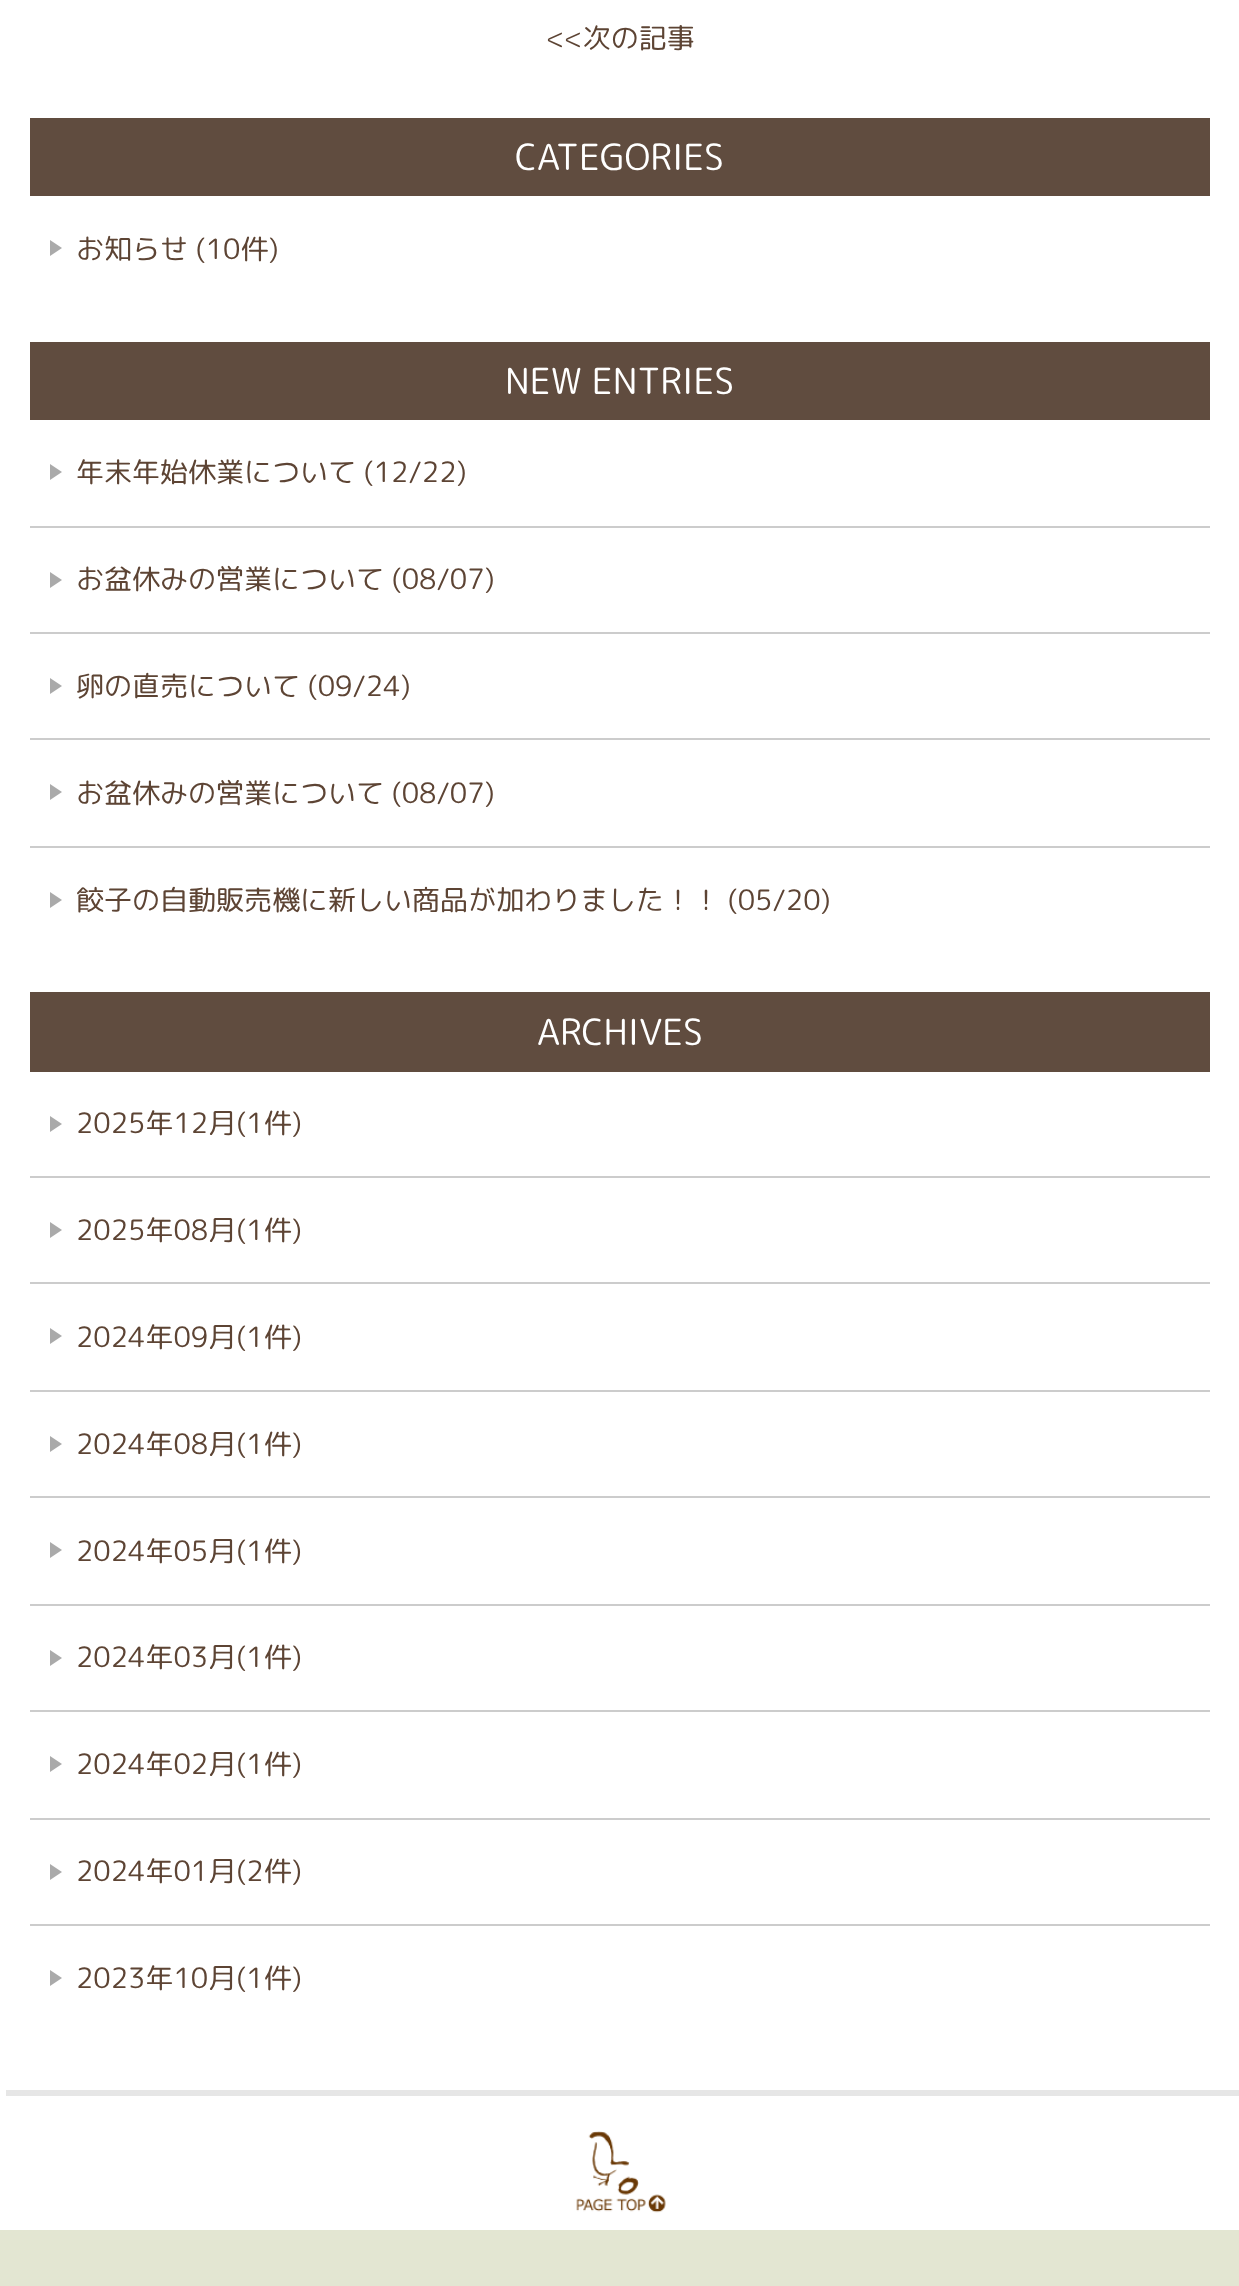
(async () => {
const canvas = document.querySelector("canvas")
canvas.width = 1239
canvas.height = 2286
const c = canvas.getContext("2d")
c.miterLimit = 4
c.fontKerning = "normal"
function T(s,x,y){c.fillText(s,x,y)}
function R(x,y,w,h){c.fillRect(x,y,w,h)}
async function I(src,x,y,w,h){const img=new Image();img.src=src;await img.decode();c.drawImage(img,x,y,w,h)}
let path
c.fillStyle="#fff"
R(0,0,1239,2286)
c.font="28px 'Rounded Mplus 1c'"
c.fillStyle="#5d4434"
T("<<次の記事",546,48)
c.fillStyle="#e6e6e6"
path = new Path2D("M6 2090v6h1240v-1992h-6v1986z")
c.fill(path)
c.fillStyle="#604c3f"
R(30,118,1180,78)
c.font="36px 'Rounded Mplus 1c'"
c.fillStyle="#fff"
T("CATEGORIES",515,170)
c.fillStyle="#aaa"
path = new Path2D("M50 256v-16l12 8z")
c.fill(path)
c.font="28px 'Rounded Mplus 1c'"
c.fillStyle="#5d4434"
T("お知らせ (10件)",76,259)
c.fillStyle="#604c3f"
R(30,342,1180,78)
c.font="36px 'Rounded Mplus 1c'"
c.fillStyle="#fff"
T("NEW ENTRIES",505,394)
c.fillStyle="#ccc"
R(30,526,1180,2)
c.fillStyle="#aaa"
path = new Path2D("M50 480v-16l12 8z")
c.fill(path)
c.font="28px 'Rounded Mplus 1c'"
c.fillStyle="#5d4434"
T("年末年始休業について (12/22)",76,482)
c.fillStyle="#ccc"
R(30,632,1180,2)
c.fillStyle="#aaa"
path = new Path2D("M50 588v-16l12 8z")
c.fill(path)
c.fillStyle="#5d4434"
T("お盆休みの営業について (08/07)",76,589)
c.fillStyle="#ccc"
R(30,738,1180,2)
c.fillStyle="#aaa"
path = new Path2D("M50 694v-16l12 8z")
c.fill(path)
c.fillStyle="#5d4434"
T("卵の直売について (09/24)",76,696)
c.fillStyle="#ccc"
R(30,846,1180,2)
c.fillStyle="#aaa"
path = new Path2D("M50 800v-16l12 8z")
c.fill(path)
c.fillStyle="#5d4434"
T("お盆休みの営業について (08/07)",76,803)
c.fillStyle="#aaa"
path = new Path2D("M50 908v-16l12 8z")
c.fill(path)
c.fillStyle="#5d4434"
T("餃子の自動販売機に新しい商品が加わりました！！ (05/20)",76,910)
c.fillStyle="#604c3f"
R(30,992,1180,80)
c.font="36px 'Rounded Mplus 1c'"
c.fillStyle="#fff"
T("ARCHIVES",537,1045)
c.fillStyle="#ccc"
R(30,1176,1180,2)
c.fillStyle="#aaa"
path = new Path2D("M50 1132v-16l12 8z")
c.fill(path)
c.font="28px 'Rounded Mplus 1c'"
c.fillStyle="#5d4434"
T("2025年12月(1件)",76,1133)
c.fillStyle="#ccc"
R(30,1282,1180,2)
c.fillStyle="#aaa"
path = new Path2D("M50 1238v-16l12 8z")
c.fill(path)
c.fillStyle="#5d4434"
T("2025年08月(1件)",76,1240)
c.fillStyle="#ccc"
R(30,1390,1180,2)
c.fillStyle="#aaa"
path = new Path2D("M50 1344v-16l12 8z")
c.fill(path)
c.fillStyle="#5d4434"
T("2024年09月(1件)",76,1347)
c.fillStyle="#ccc"
R(30,1496,1180,2)
c.fillStyle="#aaa"
path = new Path2D("M50 1452v-16l12 8z")
c.fill(path)
c.fillStyle="#5d4434"
T("2024年08月(1件)",76,1454)
c.fillStyle="#ccc"
R(30,1604,1180,2)
c.fillStyle="#aaa"
path = new Path2D("M50 1558v-16l12 8z")
c.fill(path)
c.fillStyle="#5d4434"
T("2024年05月(1件)",76,1561)
c.fillStyle="#ccc"
R(30,1710,1180,2)
c.fillStyle="#aaa"
path = new Path2D("M50 1666v-16l12 8z")
c.fill(path)
c.fillStyle="#5d4434"
T("2024年03月(1件)",76,1667)
c.fillStyle="#ccc"
R(30,1818,1180,2)
c.fillStyle="#aaa"
path = new Path2D("M50 1772v-16l12 8z")
c.fill(path)
c.fillStyle="#5d4434"
T("2024年02月(1件)",76,1774)
c.fillStyle="#ccc"
R(30,1924,1180,2)
c.fillStyle="#aaa"
path = new Path2D("M50 1880v-16l12 8z")
c.fill(path)
c.fillStyle="#5d4434"
T("2024年01月(2件)",76,1881)
c.fillStyle="#aaa"
path = new Path2D("M50 1986v-16l12 8z")
c.fill(path)
c.fillStyle="#5d4434"
T("2023年10月(1件)",76,1988)
c.fillStyle="#e3e6d2"
R(0,2230,1239,56)
await I("1.png",576,2131,90,82)
})()
